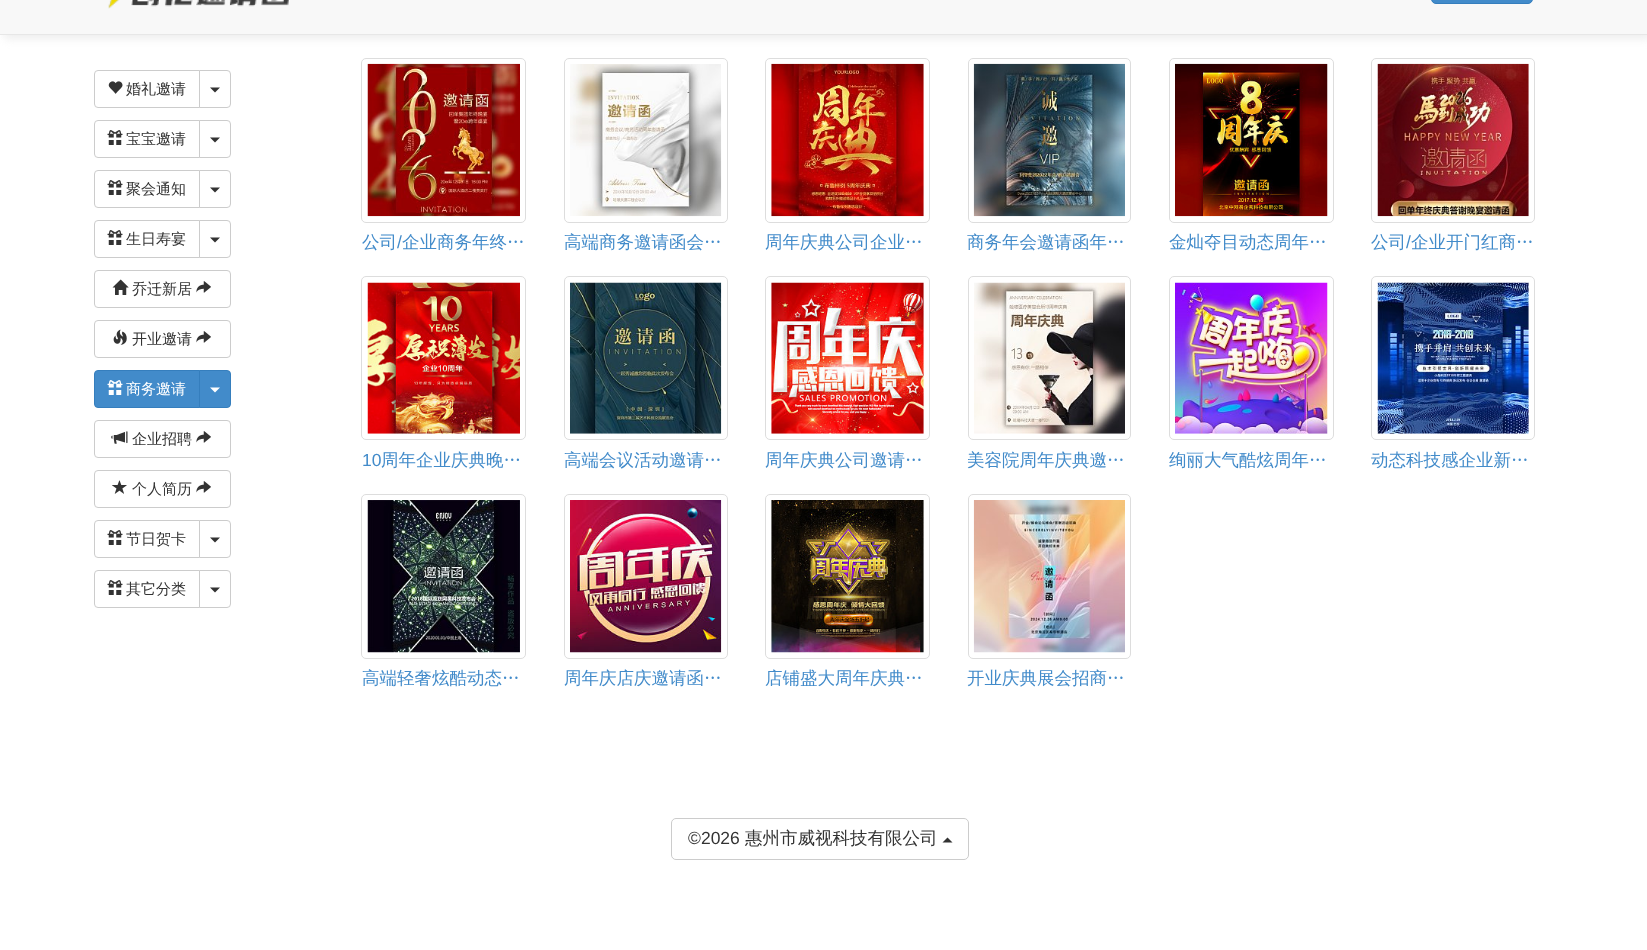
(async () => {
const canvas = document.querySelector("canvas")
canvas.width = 1647
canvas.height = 950
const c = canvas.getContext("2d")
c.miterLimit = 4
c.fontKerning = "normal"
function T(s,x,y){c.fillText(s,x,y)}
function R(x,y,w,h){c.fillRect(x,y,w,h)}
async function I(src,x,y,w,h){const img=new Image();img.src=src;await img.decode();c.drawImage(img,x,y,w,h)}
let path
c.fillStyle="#fff"
R(0,0,1647,950)
c.fillStyle="#eee"
c.filter="blur(4px)"
c.beginPath()
c.rect(4,-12,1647,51)
c.fill()
c.filter="none"
c.fillStyle="#f8f8f8"
R(0,0,1647,34)
c.fillStyle="#e7e7e7"
R(0,34,1647,1)
await I("1.png",108,0,182,9)
c.fillStyle="#428bca"
c.beginPath()
c.roundRect(1431.5,-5.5,101,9,4.5)
c.fill()
c.strokeStyle="#357ebd"
c.stroke()
c.beginPath()
c.roundRect(94.5,70.5,105,37,[3.5,0,0,3.5])
c.strokeStyle="#ccc"
c.stroke()
await I("2.png",108,81,15,13)
c.font="500 15px WenQuanYi Zen Hei"
c.fillStyle="#333"
T("婚礼邀请",126,94)
c.fillStyle="#fff"
c.beginPath()
c.roundRect(199.5,70.5,31,37,[0,3.5,3.5,0])
c.fill()
c.stroke()
c.fillStyle="#333"
path = new Path2D("M210 87.5h10l-5 5z")
c.fill(path)
c.beginPath()
c.roundRect(94.5,120.5,105,37,[3.5,0,0,3.5])
c.stroke()
await I("3.png",107,130,16,15)
T("宝宝邀请",126,144)
c.fillStyle="#fff"
c.beginPath()
c.roundRect(199.5,120.5,31,37,[0,3.5,3.5,0])
c.fill()
c.stroke()
c.fillStyle="#333"
path = new Path2D("M210 137.5h10l-5 5z")
c.fill(path)
c.beginPath()
c.roundRect(94.5,170.5,105,37,[3.5,0,0,3.5])
c.stroke()
await I("3.png",107,180,16,15)
T("聚会通知",126,194)
c.fillStyle="#fff"
c.beginPath()
c.roundRect(199.5,170.5,31,37,[0,3.5,3.5,0])
c.fill()
c.stroke()
c.fillStyle="#333"
path = new Path2D("M210 187.5h10l-5 5z")
c.fill(path)
c.beginPath()
c.roundRect(94.5,220.5,105,37,[3.5,0,0,3.5])
c.stroke()
await I("3.png",107,230,16,15)
T("生日寿宴",126,244)
c.fillStyle="#fff"
c.beginPath()
c.roundRect(199.5,220.5,31,37,[0,3.5,3.5,0])
c.fill()
c.stroke()
c.fillStyle="#333"
path = new Path2D("M210 237.5h10l-5 5z")
c.fill(path)
c.beginPath()
c.roundRect(94.5,270.5,136,37,3.5)
c.stroke()
await I("4.png",112,279,17,16)
T("乔迁新居",132,294)
await I("5.png",196,281,15,12)
c.beginPath()
c.roundRect(94.5,320.5,136,37,3.5)
c.stroke()
await I("6.png",113,329,14,16)
T("开业邀请",132,344)
await I("5.png",196,331,15,12)
c.fillStyle="#428bca"
c.beginPath()
c.roundRect(94.5,370.5,105,37,[3.5,0,0,3.5])
c.fill()
c.strokeStyle="#357ebd"
c.stroke()
await I("7.png",107,380,16,15)
c.fillStyle="#fff"
T("商务邀请",126,394)
c.fillStyle="#428bca"
c.beginPath()
c.roundRect(199.5,370.5,31,37,[0,3.5,3.5,0])
c.fill()
c.stroke()
c.fillStyle="#fff"
path = new Path2D("M210 387.5h10l-5 5z")
c.fill(path)
c.beginPath()
c.roundRect(94.5,420.5,136,37,3.5)
c.strokeStyle="#ccc"
c.stroke()
await I("8.png",111,431,17,13)
c.fillStyle="#333"
T("企业招聘",132,444)
await I("5.png",196,431,15,12)
c.beginPath()
c.roundRect(94.5,470.5,136,37,3.5)
c.stroke()
await I("9.png",112,480,15,14)
T("个人简历",132,494)
await I("5.png",196,481,15,12)
c.beginPath()
c.roundRect(94.5,520.5,105,37,[3.5,0,0,3.5])
c.stroke()
await I("3.png",107,530,16,15)
T("节日贺卡",126,544)
c.fillStyle="#fff"
c.beginPath()
c.roundRect(199.5,520.5,31,37,[0,3.5,3.5,0])
c.fill()
c.stroke()
c.fillStyle="#333"
path = new Path2D("M210 537.5h10l-5 5z")
c.fill(path)
c.beginPath()
c.roundRect(94.5,570.5,105,37,[3.5,0,0,3.5])
c.stroke()
await I("3.png",107,580,16,15)
T("其它分类",126,594)
c.fillStyle="#fff"
c.beginPath()
c.roundRect(199.5,570.5,31,37,[0,3.5,3.5,0])
c.fill()
c.stroke()
c.fillStyle="#333"
path = new Path2D("M210 587.5h10l-5 5z")
c.fill(path)
c.beginPath()
c.roundRect(361.5,58.5,164,164,4.5)
c.strokeStyle="#ddd"
c.stroke()
await I("10.png",367,63,153,154)
c.font="500 17.5px WenQuanYi Zen Hei"
c.fillStyle="#428bca"
T("公司",362,248)
c.font="17.5px Liberation Sans"
T("/",397,248)
c.font="500 17.5px WenQuanYi Zen Hei"
T("企业商务年终…",402,248)
c.beginPath()
c.roundRect(564.5,58.5,163,164,4.5)
c.stroke()
await I("11.png",570,64,152,153)
T("高端商务邀请函会…",564,248)
c.beginPath()
c.roundRect(765.5,58.5,164,164,4.5)
c.stroke()
await I("12.png",771,63,153,154)
T("周年庆典公司企业…",765,248)
c.beginPath()
c.roundRect(968.5,58.5,162,164,4.5)
c.stroke()
await I("13.png",973,63,152,154)
T("商务年会邀请函年…",967,248)
c.beginPath()
c.roundRect(1169.5,58.5,164,164,4.5)
c.stroke()
await I("14.png",1175,63,153,154)
T("金灿夺目动态周年…",1169,248)
c.beginPath()
c.roundRect(1371.5,58.5,163,164,4.5)
c.stroke()
await I("15.png",1377,63,152,154)
T("公司",1371,248)
c.font="17.5px Liberation Sans"
T("/",1406,248)
c.font="500 17.5px WenQuanYi Zen Hei"
T("企业开门红商…",1411,248)
c.beginPath()
c.roundRect(361.5,276.5,164,163,4.5)
c.stroke()
await I("16.png",367,282,153,152)
c.font="17.5px Liberation Sans"
T("10",362,466)
c.font="500 17.5px WenQuanYi Zen Hei"
T("周年企业庆典晚…",381,466)
c.beginPath()
c.roundRect(564.5,276.5,163,163,4.5)
c.stroke()
await I("17.png",570,282,152,152)
T("高端会议活动邀请…",564,466)
c.beginPath()
c.roundRect(765.5,276.5,164,163,4.5)
c.stroke()
await I("18.png",771,282,153,152)
T("周年庆典公司邀请…",765,466)
c.beginPath()
c.roundRect(968.5,276.5,162,163,4.5)
c.stroke()
await I("19.png",974,282,151,152)
T("美容院周年庆典邀…",967,466)
c.beginPath()
c.roundRect(1169.5,276.5,164,163,4.5)
c.stroke()
await I("20.png",1175,282,153,152)
T("绚丽大气酷炫周年…",1169,466)
c.beginPath()
c.roundRect(1371.5,276.5,163,163,4.5)
c.stroke()
await I("21.png",1377,282,152,152)
T("动态科技感企业新…",1371,466)
c.beginPath()
c.roundRect(361.5,494.5,164,164,4.5)
c.stroke()
await I("22.png",367,500,153,153)
T("高端轻奢炫酷动态…",362,684)
c.beginPath()
c.roundRect(564.5,494.5,163,164,4.5)
c.stroke()
await I("23.png",570,500,152,153)
T("周年庆店庆邀请函…",564,684)
c.beginPath()
c.roundRect(765.5,494.5,164,164,4.5)
c.stroke()
await I("24.png",771,500,153,153)
T("店铺盛大周年庆典…",765,684)
c.beginPath()
c.roundRect(968.5,494.5,162,164,4.5)
c.stroke()
await I("25.png",973,500,152,153)
T("开业庆典展会招商…",967,684)
c.beginPath()
c.roundRect(671.5,818.5,297,41,4.5)
c.strokeStyle="#ccc"
c.stroke()
c.font="17.5px Liberation Sans"
c.fillStyle="#333"
T("©2026",688,844)
c.font="500 17.5px WenQuanYi Zen Hei"
T("惠州市威视科技有限公司",745,844)
path = new Path2D("M952.5 842.5h-10l5-5z")
c.fill(path)
})()
